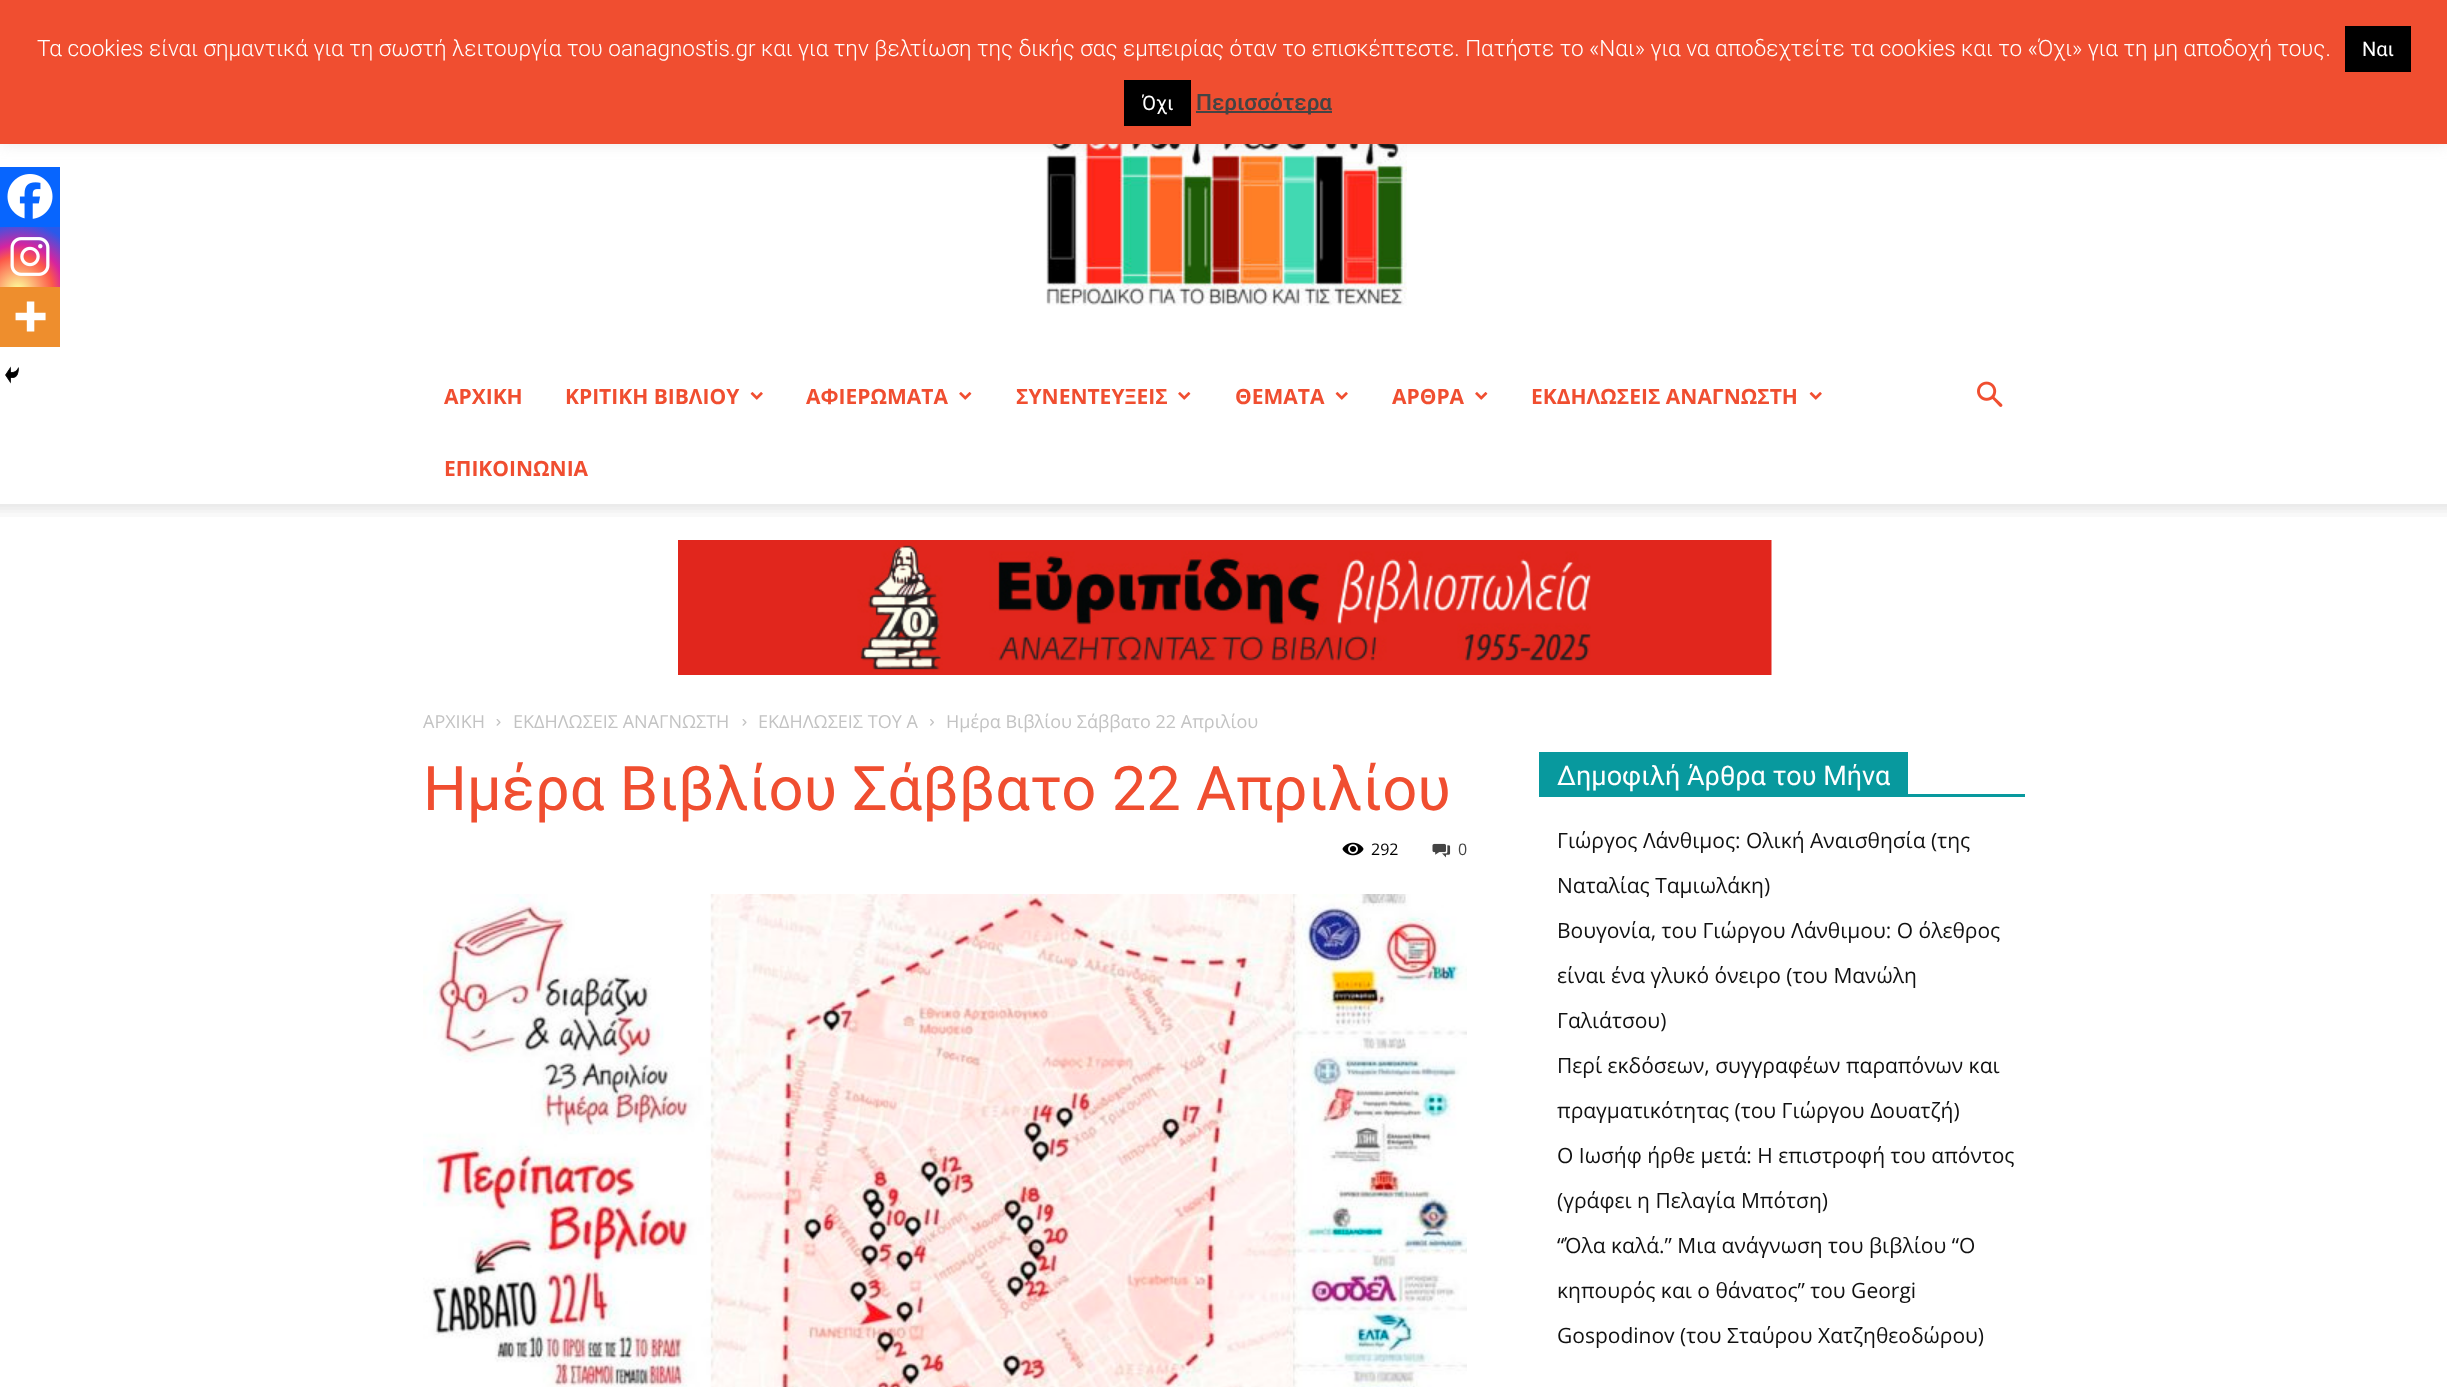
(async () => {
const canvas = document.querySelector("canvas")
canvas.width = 2447
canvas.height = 1387
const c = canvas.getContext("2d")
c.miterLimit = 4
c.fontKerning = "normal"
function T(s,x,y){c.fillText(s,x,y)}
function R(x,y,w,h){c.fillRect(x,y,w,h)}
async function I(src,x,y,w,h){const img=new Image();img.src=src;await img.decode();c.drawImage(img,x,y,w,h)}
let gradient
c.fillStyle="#fff"
R(0,0,2447,1387)
await I("1.png",1046,144,361,162)
c.fillStyle="#acabab4d"
c.filter="blur(7.5px)"
c.beginPath()
c.rect(0,-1,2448,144)
c.fill()
c.filter="none"
c.fillStyle="#f04e30"
R(0,0,2447,144)
c.font="300 22.5px Roboto"
c.fillStyle="#fff"
T("Τα cookies είναι σημαντικά για τη σωστή λειτουργία του oanagnostis.gr και για την βελτίωση της δικής σας εμπειρίας όταν το επισκέπτεστε. Πατήστε το «Ναι» για να αποδεχτείτε τα cookies και το «Όχι» για τη μη αποδοχή τους.",37,56)
c.fillStyle="#000"
R(2345,26,66,46)
c.font="20px Roboto"
c.fillStyle="#fff"
T("Ναι",2362,56)
c.fillStyle="#000"
R(1124,80,67,46)
c.fillStyle="#fff"
T("Όχι",1142,110)
c.fillStyle="#444"
R(1196,111,136,2)
c.font="500 22.5px Roboto"
T("Περισσότερα",1196,110)
c.font="bold 21px Open Sans"
c.fillStyle="#f04e30"
T("ΑΡΧΙΚΗ",444,404)
T("ΚΡΙΤΙΚΗ ΒΙΒΛΙΟΥ",565,404)
await I("2.png",750,392,13,8)
T("ΑΦΙΕΡΩΜΑΤΑ",806,404)
await I("3.png",959,392,13,8)
T("ΣΥΝΕΝΤΕΥΞΕΙΣ",1016,404)
await I("3.png",1178,392,13,8)
T("ΘΕΜΑΤΑ",1235,404)
await I("2.png",1335,392,13,8)
T("ΑΡΘΡΑ",1392,404)
await I("3.png",1475,392,13,8)
T("ΕΚΔΗΛΩΣΕΙΣ ΑΝΑΓΝΩΣΤΗ",1531,404)
await I("2.png",1809,392,13,8)
T("ΕΠΙΚΟΙΝΩΝΙΑ",444,476)
await I("4.png",1977,381,26,26)
await I("5.png",0,504,2447,13)
await I("6.png",678,540,1094,135)
c.font="18px Open Sans"
c.fillStyle="#c3c3c3"
T("ΑΡΧΙΚΗ",423,728)
await I("7.png",496,719,5,7)
T("ΕΚΔΗΛΩΣΕΙΣ ΑΝΑΓΝΩΣΤΗ",513,728)
await I("7.png",742,719,5,7)
T("ΕΚΔΗΛΩΣΕΙΣ ΤΟΥ Α",758,728)
await I("8.png",930,719,4,7)
T("Ημέρα Βιβλίου Σάββατο 22 Απριλίου",946,728)
c.fillStyle="#0765fe"
R(0,167,60,60)
await I("9.png",7,174,46,45)
gradient = c.createRadialGradient(18,291,0,18,291,77)
gradient.addColorStop(0,"#fdf497")
gradient.addColorStop(.05,"#fdf497")
gradient.addColorStop(.45,"#fd5949")
gradient.addColorStop(.6,"#d6249f")
gradient.addColorStop(.9,"#285aeb")
c.fillStyle = gradient
R(0,227,60,60)
await I("10.png",10,237,40,39)
c.fillStyle="#ee8e2d"
R(0,287,60,60)
await I("11.png",15,301,31,31)
await I("12.png",5,366,14,18)
await I("13.png",423,894,1044,493)
c.font="61.5px Roboto"
c.fillStyle="#f04e30"
T("Ημέρα Βιβλίου Σάββατο 22 Απριλίου",423,810)
await I("14.png",1342,842,22,14)
c.font="16px Open Sans"
c.fillStyle="#000"
T("292",1371,855)
await I("15.png",1432,843,19,15)
c.fillStyle="#444"
T("0",1458,855)
c.fillStyle="#08999e"
R(1539,794,486,3)
R(1539,752,369,42)
c.font="27px Roboto"
c.fillStyle="#fff"
T("Δημοφιλή Άρθρα του Μήνα",1557,785)
c.font="21px Open Sans"
c.fillStyle="#111"
T("Γιώργος Λάνθιμος: Ολική Αναισθησία (της",1557,848)
T("Ναταλίας Ταμιωλάκη)",1557,893)
T("Βουγονία, του Γιώργου Λάνθιμου: Ο όλεθρος",1557,938)
T("είναι ένα γλυκό όνειρο (του Μανώλη",1557,983)
T("Γαλιάτσου)",1557,1028)
T("Περί εκδόσεων, συγγραφέων παραπόνων και",1557,1073)
T("πραγματικότητας (του Γιώργου Δουατζή)",1557,1118)
T("Ο Ιωσήφ ήρθε μετά: Η επιστροφή του απόντος",1557,1163)
T("(γράφει η Πελαγία Μπότση)",1557,1208)
T("“Όλα καλά.” Μια ανάγνωση του βιβλίου “Ο",1557,1253)
T("κηπουρός και ο θάνατος” του Georgi",1557,1298)
T("Gospodinov (του Σταύρου Χατζηθεοδώρου)",1557,1343)
})()
